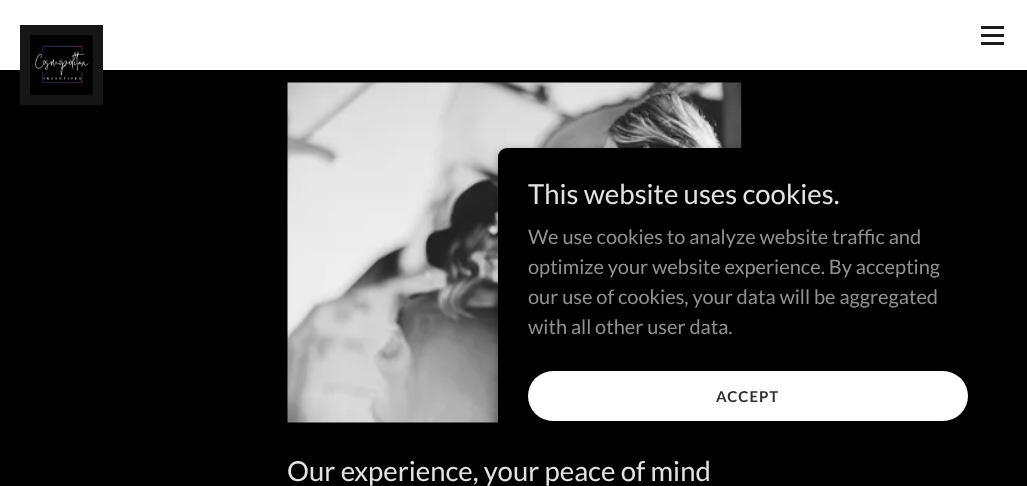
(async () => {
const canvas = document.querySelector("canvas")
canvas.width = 1027
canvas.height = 486
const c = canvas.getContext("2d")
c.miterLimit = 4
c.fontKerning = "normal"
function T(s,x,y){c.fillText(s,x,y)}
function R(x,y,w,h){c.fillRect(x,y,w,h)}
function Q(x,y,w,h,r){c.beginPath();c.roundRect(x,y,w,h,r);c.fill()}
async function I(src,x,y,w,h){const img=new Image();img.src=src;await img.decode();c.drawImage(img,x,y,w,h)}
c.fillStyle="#000"
R(0,0,1027,486)
c.fillStyle="#fff"
R(0,0,1027,70)
c.fillStyle="#161616"
R(20,25,83,80)
await I("1.png",30,35,63,60)
c.fillStyle="#1b1b1b"
R(981,26,23,3)
R(981,34,23,3)
R(981,42,23,3)
await I("2.png",287,82,455,341)
c.fillStyle="#0000004d"
c.filter="blur(4px)"
c.beginPath()
c.roundRect(498,150,500,309,9)
c.fill()
c.filter="none"
c.fillStyle="#000"
Q(498,148,500,308,9)
c.font="27.5px Lato"
c.fillStyle="#e2e2e2"
T("This website uses cookies.",528,204)
c.font="20px Lato"
c.fillStyle="#919191"
T("We use cookies to analyze website traffic and",528,244)
T("optimize your website experience. By accepting",528,274)
T("our use of cookies, your data will be aggregated",528,304)
T("with all other user data.",528,334)
c.fillStyle="#fff"
Q(528,371,440,50,25)
c.letterSpacing="1px"
c.font="bold 15px Lato"
c.fillStyle="#303030"
T("ACCEPT",716,402)
c.letterSpacing="0px"
c.font="27.5px Lato"
c.fillStyle="#e2e2e2"
T("Our experience, your peace of mind",287,481)
})()
